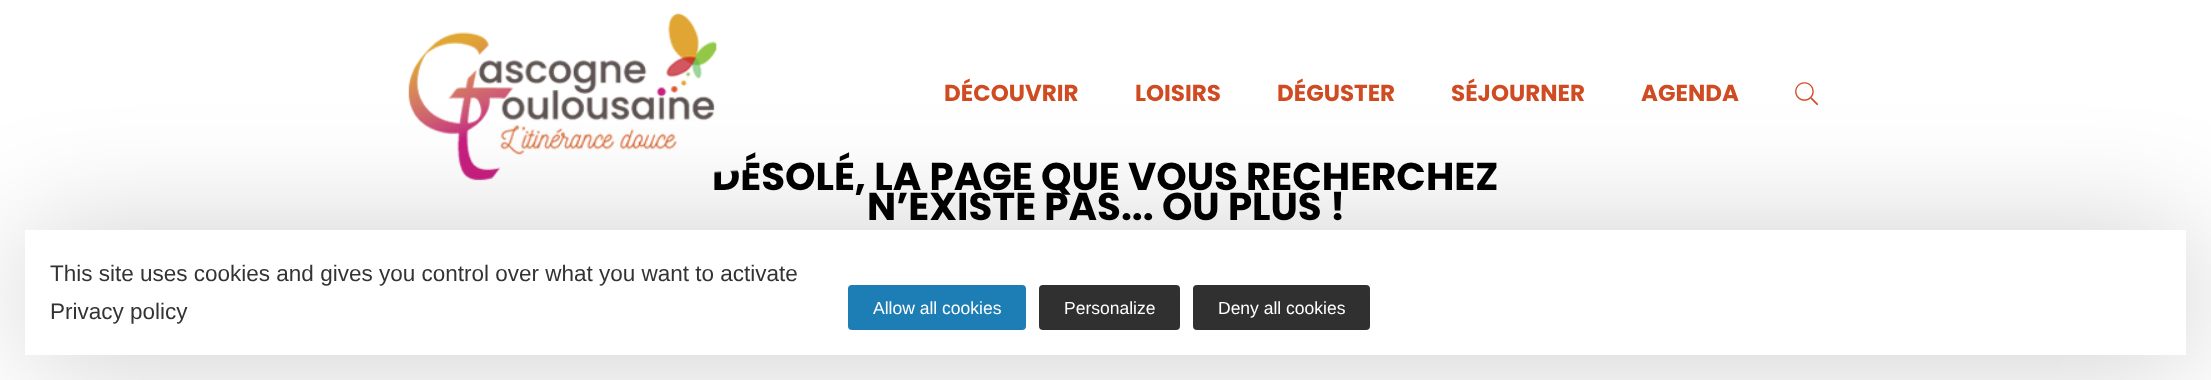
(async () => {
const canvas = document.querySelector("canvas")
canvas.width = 2211
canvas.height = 380
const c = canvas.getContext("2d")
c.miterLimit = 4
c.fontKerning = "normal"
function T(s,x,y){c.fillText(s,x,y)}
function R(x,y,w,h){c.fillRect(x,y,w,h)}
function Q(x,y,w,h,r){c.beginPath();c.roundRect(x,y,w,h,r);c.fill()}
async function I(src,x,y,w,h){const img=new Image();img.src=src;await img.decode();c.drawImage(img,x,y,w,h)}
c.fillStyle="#fff"
R(0,0,2211,380)
c.font="bold 38.75px Poppins"
c.fillStyle="#000"
T("DÉSOLÉ, LA PAGE QUE VOUS RECHERCHEZ",712,190)
await I("1.png",408,13,339,168)
c.font="bold 23px Poppins"
c.fillStyle="#cf4c23"
T("DÉCOUVRIR",944,101)
T("LOISIRS",1135,101)
T("DÉGUSTER",1277,101)
T("SÉJOURNER",1451,101)
T("AGENDA",1641,101)
await I("2.png",1795,82,24,24)
c.font="bold 38.75px Poppins"
c.fillStyle="#000"
T("N’EXISTE PAS... OU PLUS !",867,220)
c.fillStyle="#00000033"
c.filter="blur(62.5px)"
c.beginPath()
c.rect(30,235,2161,125)
c.fill()
c.filter="none"
c.fillStyle="#fff"
R(25,230,2161,125)
c.font="22.5px Liberation Sans"
c.fillStyle="#333"
T("This site uses cookies and gives you control over what you want to activate",50,281)
T("Privacy policy",50,319)
c.fillStyle="#1d7eb5"
Q(848,285,178,45,4)
c.font="17.5px Liberation Sans"
c.fillStyle="#fff"
T("Allow all cookies",873,314)
c.fillStyle="#303030"
Q(1039,285,141,45,4)
c.fillStyle="#fff"
T("Personalize",1064,314)
c.fillStyle="#303030"
Q(1193,285,177,45,4)
c.fillStyle="#fff"
T("Deny all cookies",1218,314)
})()
